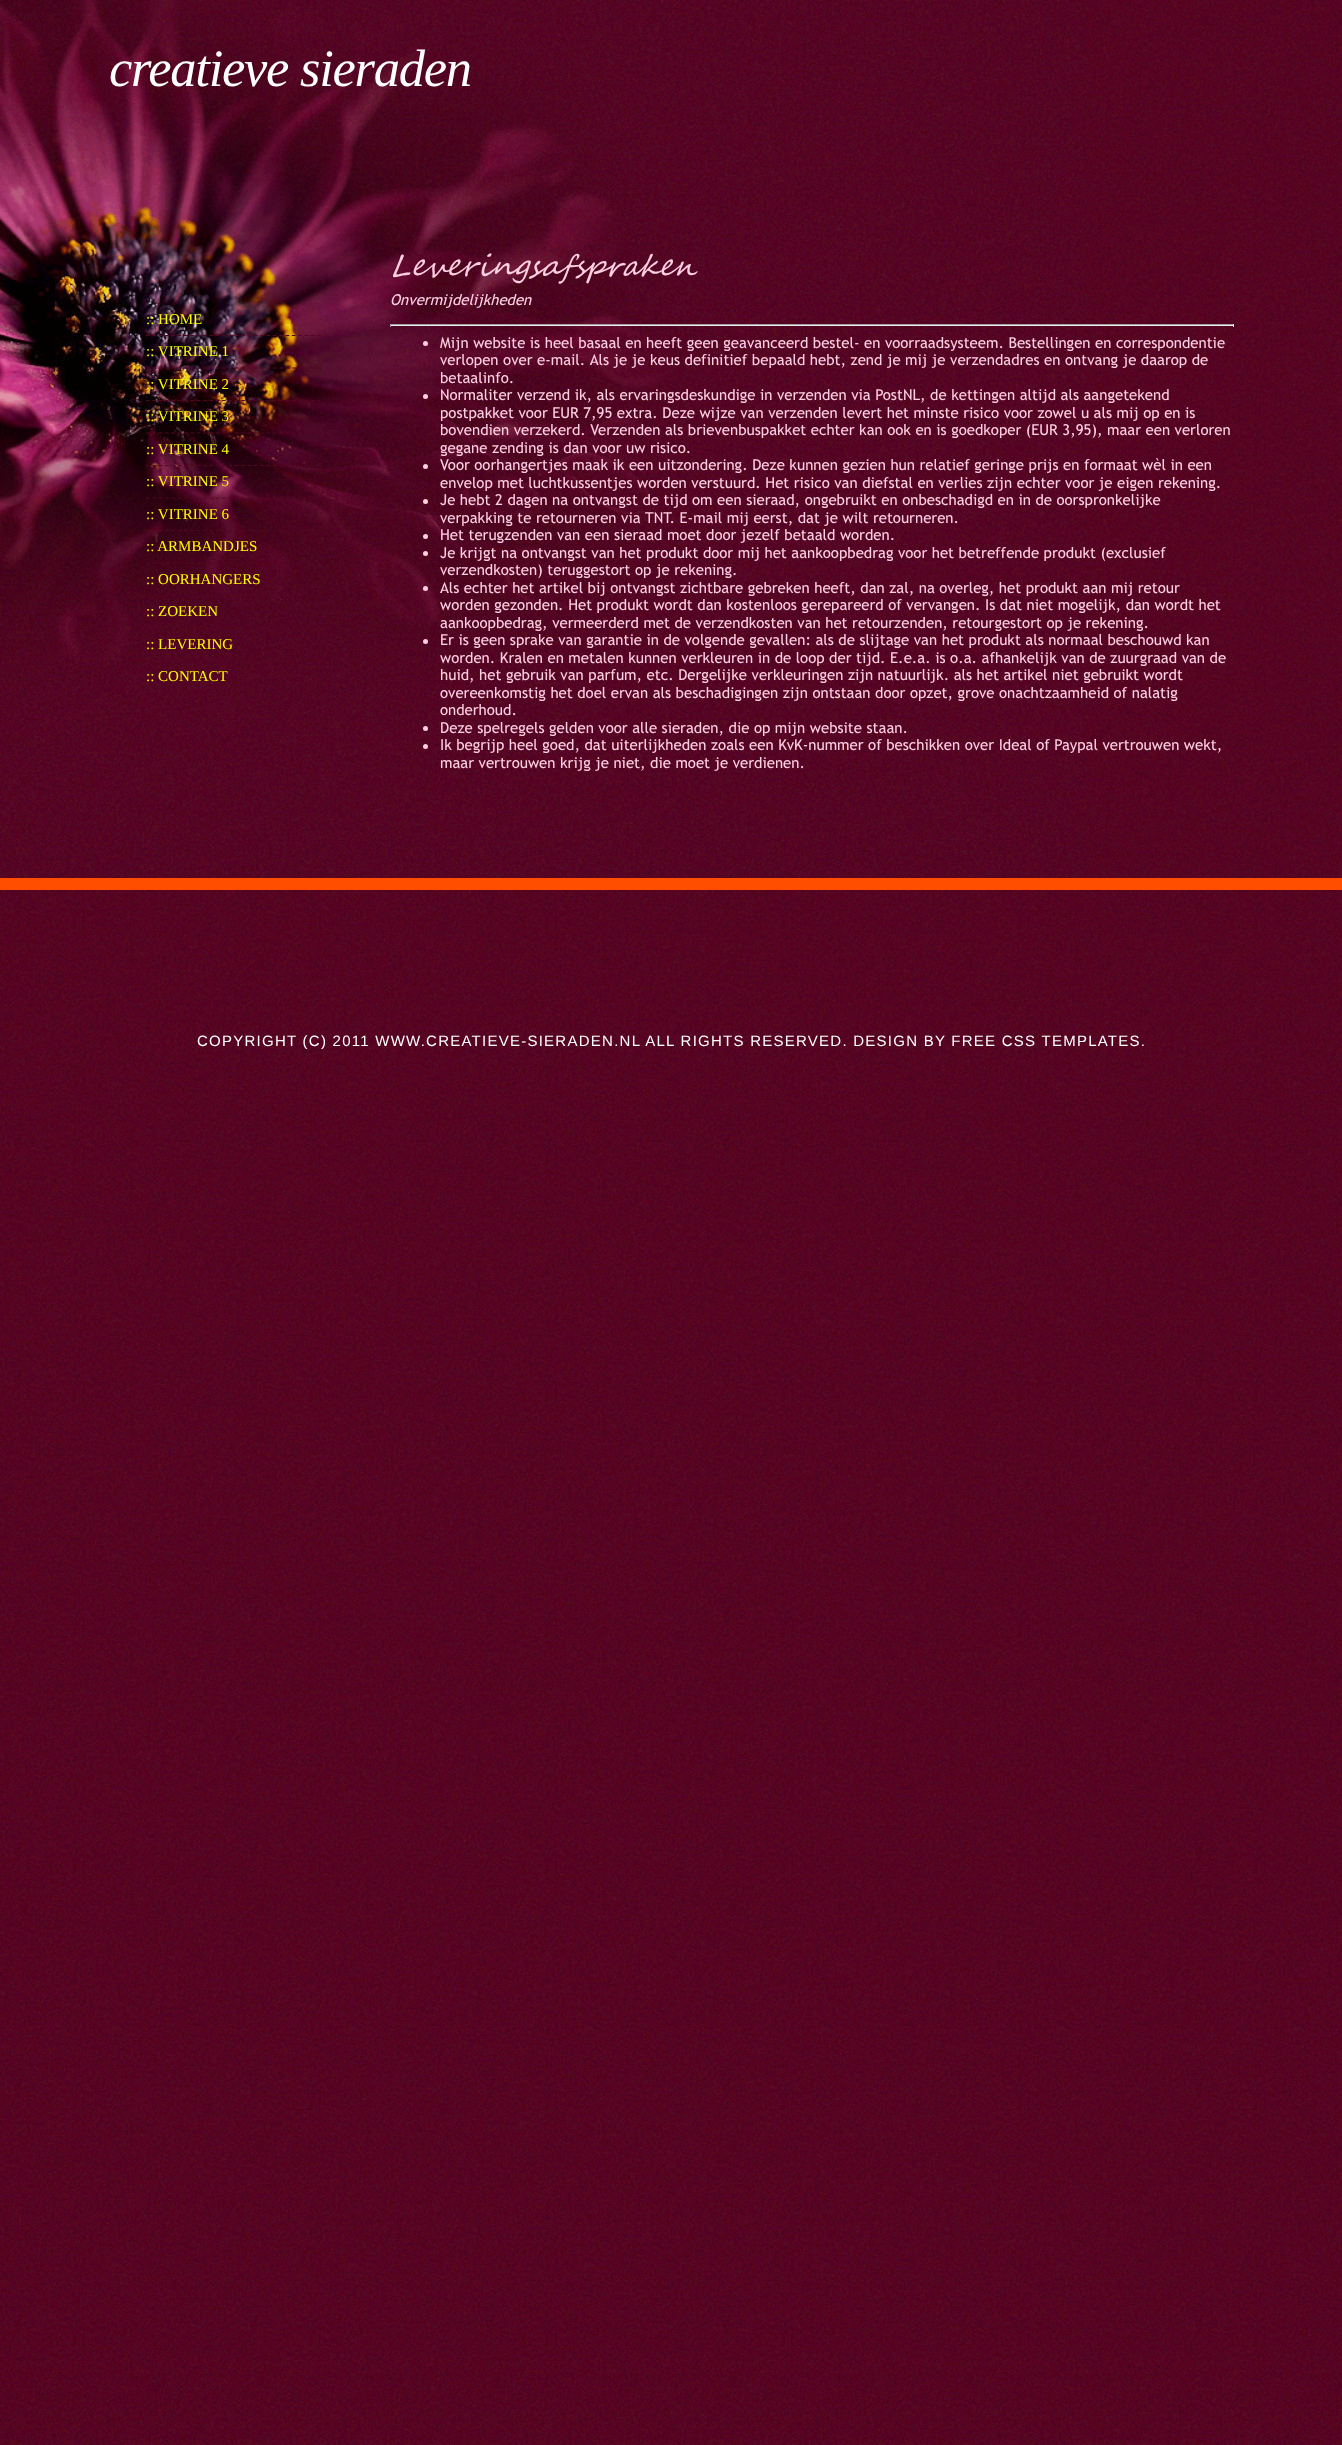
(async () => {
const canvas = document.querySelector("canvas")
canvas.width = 1342
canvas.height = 2445
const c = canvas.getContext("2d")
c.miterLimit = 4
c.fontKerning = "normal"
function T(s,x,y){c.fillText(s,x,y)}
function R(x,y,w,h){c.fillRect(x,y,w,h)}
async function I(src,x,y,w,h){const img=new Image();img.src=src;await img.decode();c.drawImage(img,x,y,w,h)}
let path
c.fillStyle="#fff"
R(0,0,1342,2445)
await I("1.png",0,0,1342,2445)
await I("2.png",0,0,1084,875)
c.letterSpacing="-1.25px"
c.font="italic 52.5px Liberation Serif"
T("creatieve sieraden",109,86)
path = new Path2D("M146 335.5h175")
c.strokeStyle="#560620"
c.lineWidth=1.2
c.setLineDash([3.75,2.59])
c.stroke(path)
c.letterSpacing="0px"
c.font="15px Liberation Serif"
c.fillStyle="#ff0"
T(":: HOME",146,324)
path = new Path2D("M146 368h175")
c.stroke(path)
T(":: VITRINE 1",146,356)
path = new Path2D("M146 400.5h175")
c.stroke(path)
T(":: VITRINE 2",146,389)
path = new Path2D("M146 433h175")
c.stroke(path)
T(":: VITRINE 3",146,421)
path = new Path2D("M146 465.5h175")
c.stroke(path)
T(":: VITRINE 4",146,454)
path = new Path2D("M146 498h175")
c.stroke(path)
T(":: VITRINE 5",146,486)
path = new Path2D("M146 530.5h175")
c.stroke(path)
T(":: VITRINE 6",146,519)
path = new Path2D("M146 563h175")
c.stroke(path)
T(":: ARMBANDJES",146,551)
path = new Path2D("M146 595.5h175")
c.stroke(path)
T(":: OORHANGERS",146,584)
path = new Path2D("M146 628h175")
c.stroke(path)
T(":: ZOEKEN",146,616)
path = new Path2D("M146 660.5h175")
c.stroke(path)
T(":: LEVERING",146,649)
path = new Path2D("M146 693h175")
c.stroke(path)
T(":: CONTACT",146,681)
c.font="italic 30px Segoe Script"
c.fillStyle="#ffcfe2"
T("Leveringsafspraken",390,276)
c.font="italic 15px Trebuchet MS"
T("Onvermijdelijkheden",390,305)
c.fillStyle="#9f9f9f"
R(390,324,844,1)
c.fillStyle="#eee"
R(1233,324,1,3)
R(390,325,844,1)
c.fillStyle="#9f9f9f"
R(390,324,1,3)
c.fillStyle="#ffcfe2"
c.beginPath()
c.arc(425.5,343.5,2.5,0,7)
c.fill()
c.font="15px Trebuchet MS"
T("Mijn website is heel basaal en heeft geen geavanceerd bestel- en voorraadsysteem. Bestellingen en correspondentie",440,348)
T("verlopen over e-mail. Als je je keus definitief bepaald hebt, zend je mij je verzendadres en ontvang je daarop de",440,365)
T("betaalinfo.",440,383)
c.beginPath()
c.arc(425.5,396.5,2.5,0,7)
c.fill()
T("Normaliter verzend ik, als ervaringsdeskundige in verzenden via PostNL, de kettingen altijd als aangetekend",440,400)
T("postpakket voor EUR 7,95 extra. Deze wijze van verzenden levert het minste risico voor zowel u als mij op en is",440,418)
T("bovendien verzekerd. Verzenden als brievenbuspakket echter kan ook en is goedkoper (EUR 3,95), maar een verloren",440,435)
T("gegane zending is dan voor uw risico.",440,453)
c.beginPath()
c.arc(425.5,466.5,2.5,0,7)
c.fill()
T("Voor oorhangertjes maak ik een uitzondering. Deze kunnen gezien hun relatief geringe prijs en formaat wèl in een",440,470)
T("envelop met luchtkussentjes worden verstuurd. Het risico van diefstal en verlies zijn echter voor je eigen rekening.",440,488)
c.beginPath()
c.arc(425.5,501.5,2.5,0,7)
c.fill()
T("Je hebt 2 dagen na ontvangst de tijd om een sieraad, ongebruikt en onbeschadigd en in de oorspronkelijke",440,505)
T("verpakking te retourneren via TNT. E-mail mij eerst, dat je wilt retourneren.",440,523)
c.beginPath()
c.arc(425.5,536.5,2.5,0,7)
c.fill()
T("Het terugzenden van een sieraad moet door jezelf betaald worden.",440,540)
c.beginPath()
c.arc(425.5,553.5,2.5,0,7)
c.fill()
T("Je krijgt na ontvangst van het produkt door mij het aankoopbedrag voor het betreffende produkt (exclusief",440,558)
T("verzendkosten) teruggestort op je rekening.",440,575)
c.beginPath()
c.arc(425.5,588.5,2.5,0,7)
c.fill()
T("Als echter het artikel bij ontvangst zichtbare gebreken heeft, dan zal, na overleg, het produkt aan mij retour",440,593)
T("worden gezonden. Het produkt wordt dan kostenloos gerepareerd of vervangen. Is dat niet mogelijk, dan wordt het",440,610)
T("aankoopbedrag, vermeerderd met de verzendkosten van het retourzenden, retourgestort op je rekening.",440,628)
c.beginPath()
c.arc(425.5,641.5,2.5,0,7)
c.fill()
T("Er is geen sprake van garantie in de volgende gevallen: als de slijtage van het produkt als normaal beschouwd kan",440,645)
T("worden. Kralen en metalen kunnen verkleuren in de loop der tijd. E.e.a. is o.a. afhankelijk van de zuurgraad van de",440,663)
T("huid, het gebruik van parfum, etc. Dergelijke verkleuringen zijn natuurlijk. als het artikel niet gebruikt wordt",440,680)
T("overeenkomstig het doel ervan als beschadigingen zijn ontstaan door opzet, grove onachtzaamheid of nalatig",440,698)
T("onderhoud.",440,715)
c.beginPath()
c.arc(425.5,728.5,2.5,0,7)
c.fill()
T("Deze spelregels gelden voor alle sieraden, die op mijn website staan.",440,733)
c.beginPath()
c.arc(425.5,746.5,2.5,0,7)
c.fill()
T("Ik begrijp heel goed, dat uiterlijkheden zoals een KvK-nummer of beschikken over Ideal of Paypal vertrouwen wekt,",440,750)
T("maar vertrouwen krijg je niet, die moet je verdienen.",440,768)
c.fillStyle="#ff4e00"
R(0,878,1342,12)
c.letterSpacing="1.25px"
c.font="15px Liberation Sans"
c.fillStyle="#fff"
T("COPYRIGHT (C) 2011 WWW.CREATIEVE-SIERADEN.NL ALL RIGHTS RESERVED. DESIGN BY FREE CSS TEMPLATES.",197,1046)
})()
